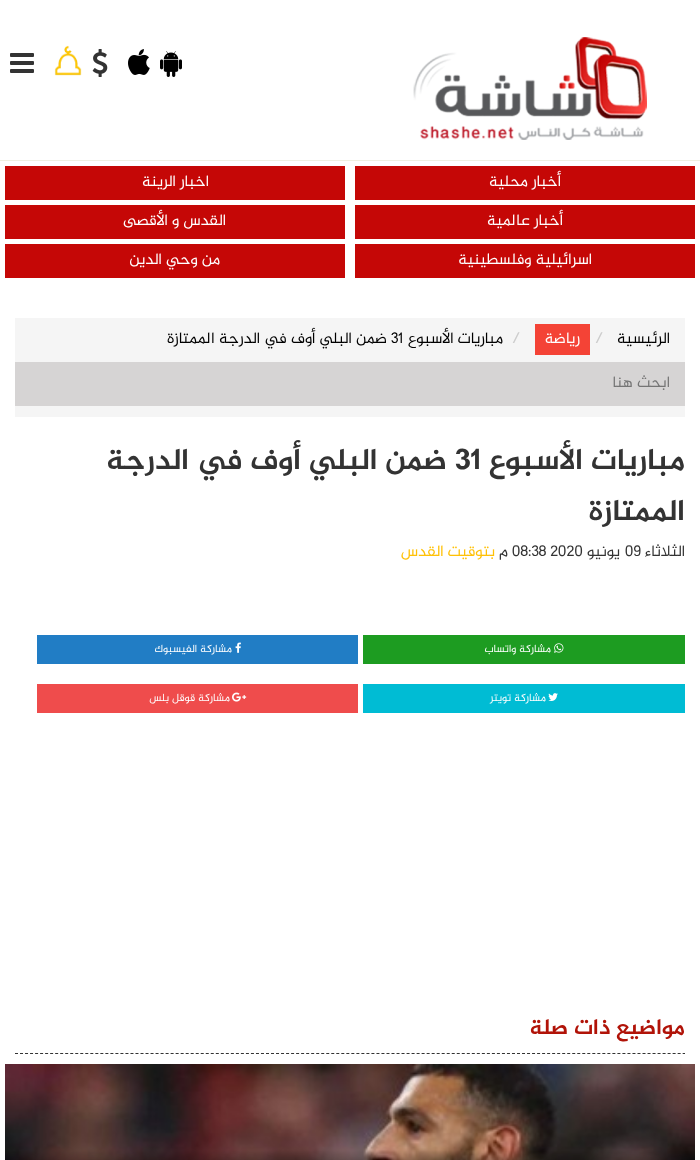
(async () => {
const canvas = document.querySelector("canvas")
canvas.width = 700
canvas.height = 1160
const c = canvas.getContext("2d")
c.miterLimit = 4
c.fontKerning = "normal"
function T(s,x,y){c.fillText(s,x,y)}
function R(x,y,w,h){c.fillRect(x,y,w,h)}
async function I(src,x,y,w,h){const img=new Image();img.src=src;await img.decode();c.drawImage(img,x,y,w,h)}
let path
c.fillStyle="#fff"
R(0,0,700,1160)
c.fillStyle="#efefe1"
R(0,160,700,1)
await I("1.png",413,37,234,103)
await I("2.png",160,51,22,26)
await I("3.png",128,49,22,26)
await I("4.png",92,49,16,28)
await I("5.png",54,45,28,31)
await I("6.png",10,53,24,20)
c.fillStyle="#c50706"
R(355,166,340,34)
c.direction="rtl"
c.font="16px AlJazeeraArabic"
c.fillStyle="#fff"
T("أخبار محلية",561,186)
c.fillStyle="#c50706"
R(5,166,340,34)
c.fillStyle="#fff"
T("اخبار الرينة",209,186)
c.fillStyle="#c50706"
R(355,205,340,34)
c.fillStyle="#fff"
T("أخبار عالمية",563,225)
c.fillStyle="#c50706"
R(5,205,340,34)
c.fillStyle="#fff"
T("القدس و الأقصى",226,225)
c.fillStyle="#c50706"
R(355,244,340,34)
c.fillStyle="#fff"
T("اسرائيلية وفلسطينية",592,264)
c.fillStyle="#c50706"
R(5,244,340,34)
c.fillStyle="#fff"
T("من وحي الدين",220,264)
c.fillStyle="#f5f5f5"
R(15,318,670,99)
c.fillStyle="#000"
T("الرئيسية",670,343)
c.direction="ltr"
c.fillStyle="#ccc"
T("/",595,343)
c.fillStyle="#f44336"
R(535,324,55,31)
c.direction="rtl"
c.fillStyle="#fff"
T("رياضة",580,343)
c.direction="ltr"
c.fillStyle="#ccc"
T("/",512,343)
c.direction="rtl"
c.fillStyle="#000"
T("مباريات الأسبوع",503,343)
c.direction="ltr"
T("31",391,343)
c.direction="rtl"
T("ضمن البلي أوف في الدرجة الممتازة",387,343)
c.fillStyle="#d6d4d4"
R(15,362,670,44)
c.fillStyle="#757575"
T("ابحث هنا",670,387)
c.font="bold 30px AlJazeeraArabic"
c.fillStyle="#333"
T("مباريات الأسبوع",685,469)
c.direction="ltr"
T("31",455,469)
c.direction="rtl"
T("ضمن البلي أوف في الدرجة",447,469)
T("الممتازة",685,520)
c.font="16px AlJazeeraArabic"
T("الثلاثاء",685,556)
c.direction="ltr"
T("09",625,556)
c.direction="rtl"
T("يونيو",620,556)
c.direction="ltr"
T("08:38 2020",512,556)
c.direction="rtl"
T("م",508,556)
c.fillStyle="#ffc107"
T("بتوقيت القدس",495,556)
c.fillStyle="#1d9c21"
R(363,635,322,29)
await I("7.png",554,643,10,10)
c.font="11px AlJazeeraArabic"
c.fillStyle="#fff"
T("مشاركة واتساب",551,652)
c.fillStyle="#217dc5"
R(37,635,321,29)
await I("8.png",235,642,6,11)
c.fillStyle="#fff"
T("مشاركة الفيسبوك",232,652)
c.fillStyle="#00bcd4"
R(363,684,322,29)
await I("9.png",548,693,10,8)
c.fillStyle="#fff"
T("مشاركة تويتر",546,701)
c.fillStyle="#ef4c4c"
R(37,684,321,29)
await I("10.png",232,692,15,10)
c.fillStyle="#fff"
T("مشاركة قوقل بلس",230,701)
path = new Path2D("M15 1053.5h670")
c.strokeStyle="#333"
c.setLineDash([3,2.02])
c.stroke(path)
c.font="bold 22px AlJazeeraArabic"
c.fillStyle="#b11308"
T("مواضيع ذات صلة",685,1034)
await I("11.png",5,1064,690,96)
})()
